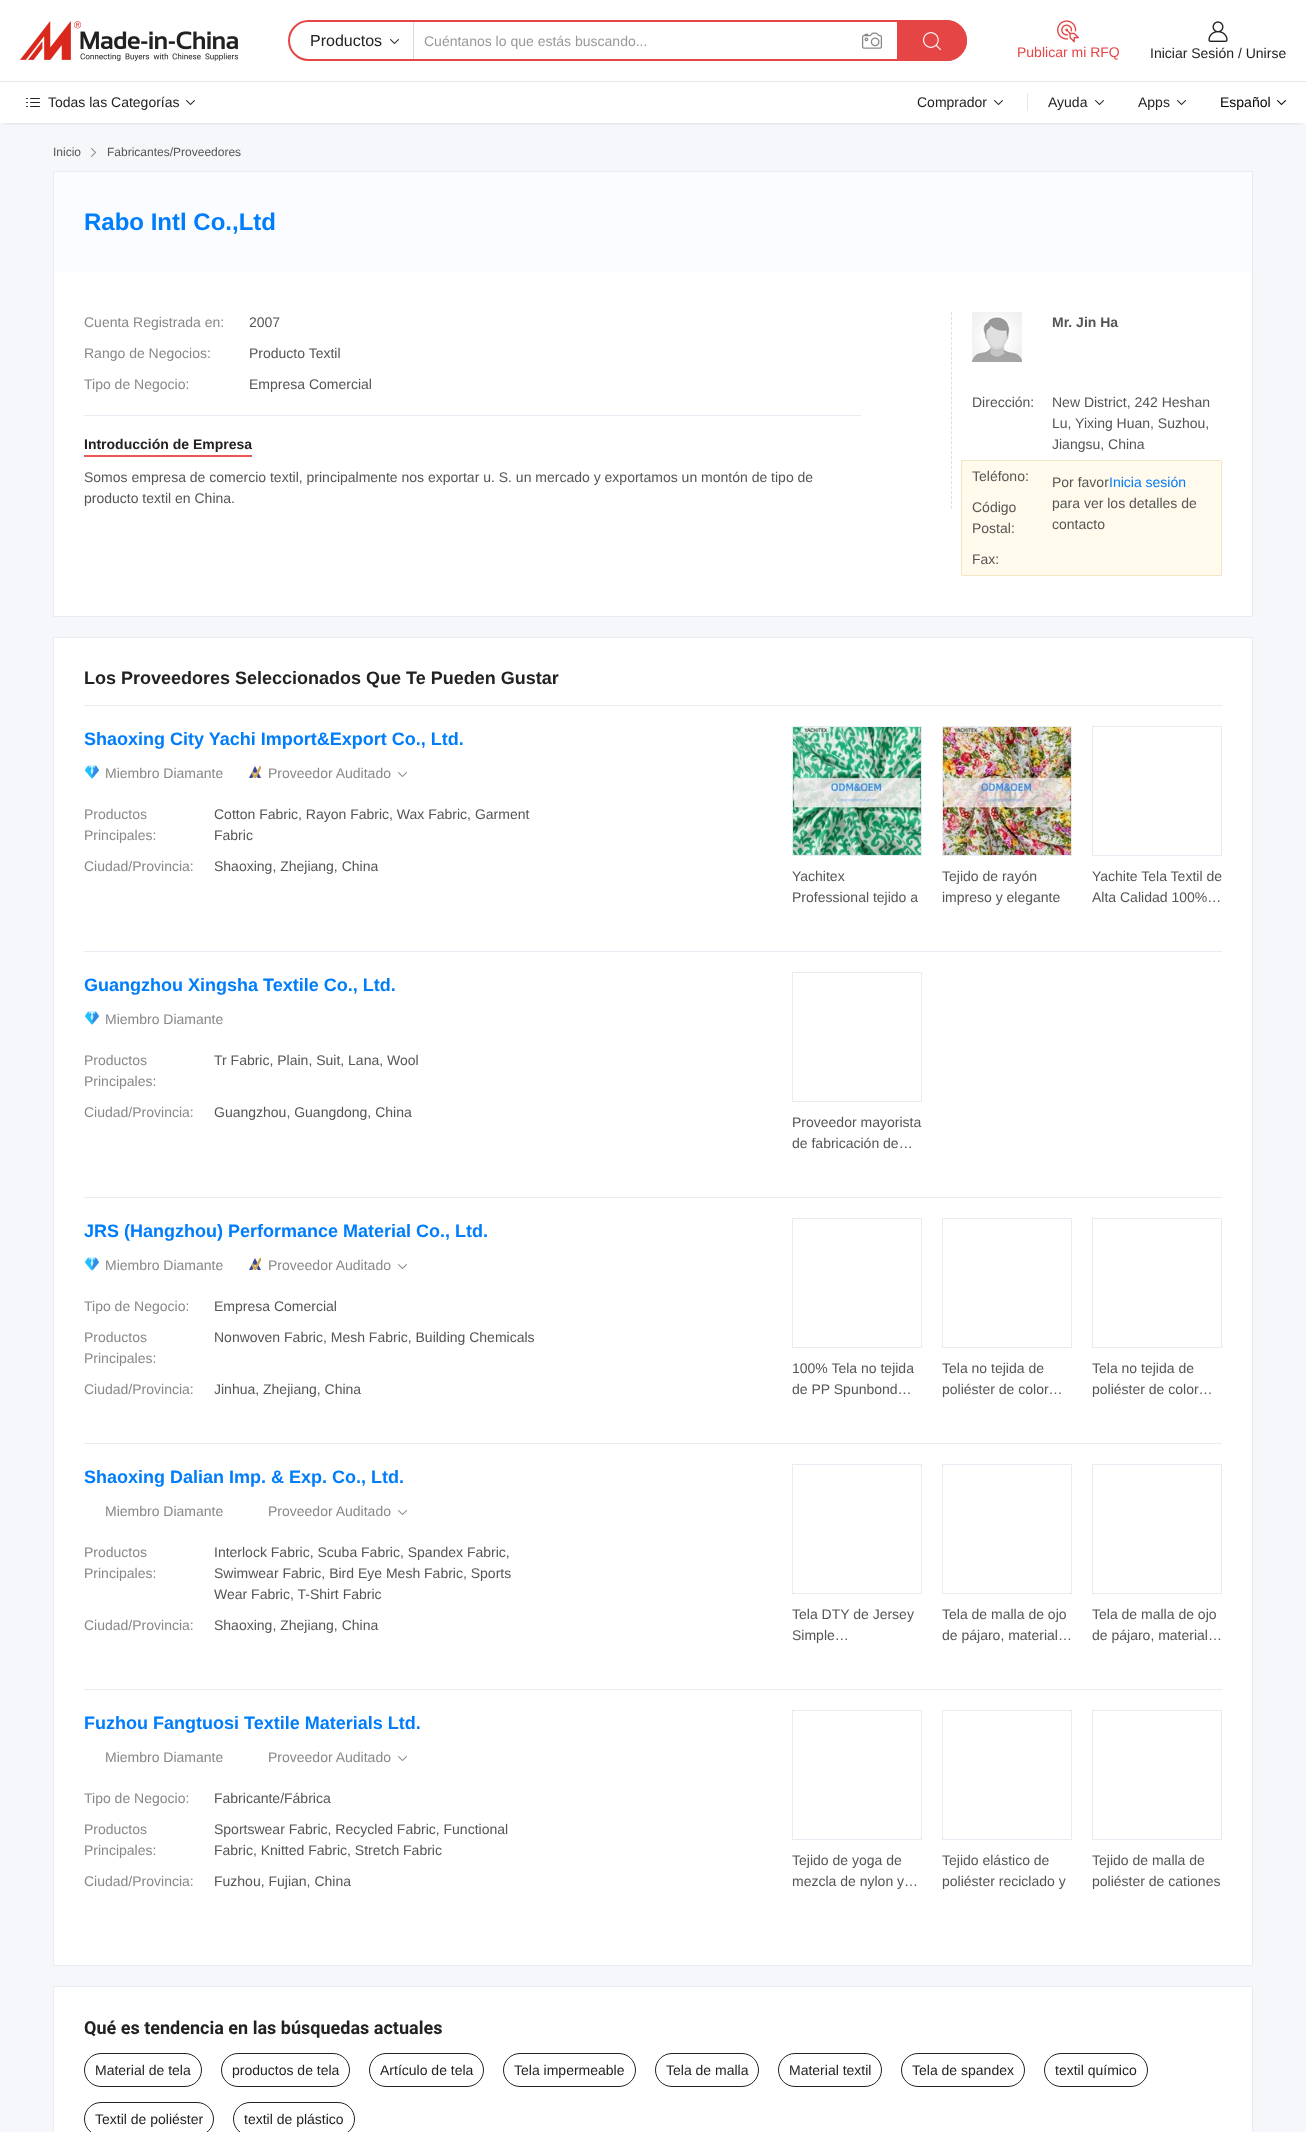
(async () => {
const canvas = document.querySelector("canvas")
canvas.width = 1306
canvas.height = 2132
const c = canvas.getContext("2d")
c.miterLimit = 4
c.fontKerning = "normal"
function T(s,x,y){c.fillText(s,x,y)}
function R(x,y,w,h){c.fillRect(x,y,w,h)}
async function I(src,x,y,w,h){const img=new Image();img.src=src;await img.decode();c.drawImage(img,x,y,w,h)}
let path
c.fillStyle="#fff"
R(0,0,1306,2132)
c.fillStyle="#f5f7fa"
R(0,123,1306,2009)
c.save()
c.beginPath()
c.rect(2,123,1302,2)
c.clip()
c.fillStyle="#0000001f"
c.filter="blur(2.5px)"
c.beginPath()
c.rect(3,6,1300,117)
c.fill()
c.filter="none"
c.restore()
await I("1.png",20,21,218,40)
c.beginPath()
c.roundRect(289,21,677,39,19.5)
c.strokeStyle="#e64545"
c.lineWidth=2
c.stroke()
c.fillStyle="#dadada"
R(413,22,1,37)
c.font="16px Liberation Sans"
c.fillStyle="#222"
T("Productos",310,46)
await I("2.png",390,39,9,5)
c.font="14px Liberation Sans"
c.fillStyle="#999"
T("Cuéntanos lo que estás buscando...",424,46)
await I("3.png",862,32,20,17)
c.fillStyle="#e64545"
c.beginPath()
c.roundRect(897,20,70,41,[0,20.5,20.5,0])
c.fill()
await I("4.png",923,32,18,19)
await I("5.png",1057,20,22,23)
T("Publicar mi RFQ",1017,57)
await I("6.png",1208,21,20,21)
c.fillStyle="#222"
T("Iniciar Sesión / Unirse",1150,58)
c.fillStyle="#e6e7eb"
R(0,81,1306,1)
await I("7.png",26,98,14,9)
c.fillStyle="#222"
T("Todas las Categorías",48,107)
await I("2.png",186,100,9,5)
T("Comprador",917,107)
await I("2.png",994,100,9,5)
c.fillStyle="#e6e7eb"
R(1027,93,1,18)
c.fillStyle="#222"
T("Ayuda",1048,107)
await I("2.png",1095,100,9,5)
T("Apps",1138,107)
await I("2.png",1177,100,9,5)
c.fillStyle="#000"
T("Español",1220,107)
await I("8.png",1277,100,9,5)
c.font="12px Liberation Sans"
c.fillStyle="#555"
T("Inicio",53,156)
await I("9.png",91,148,5,9)
T("Fabricantes/Proveedores",107,156)
c.fillStyle="#fff"
R(54,272,1198,344)
c.strokeStyle="#e6ecf2"
c.lineWidth=1
c.strokeRect(53.5,171.5,1199,445)
c.fillStyle="#fafcff"
R(54,172,1198,100)
c.font="bold 24px Liberation Sans"
c.fillStyle="#007dfa"
T("Rabo Intl Co.,Ltd",84,230)
path = new Path2D("M951.5 312v197")
c.strokeStyle="#dae0e6"
c.setLineDash([3,1.97])
c.stroke(path)
c.font="14px Liberation Sans"
c.fillStyle="#888"
T("Cuenta Registrada en:",84,327)
c.fillStyle="#555"
T("2007",249,327)
c.fillStyle="#888"
T("Rango de Negocios:",84,358)
c.fillStyle="#555"
T("Producto Textil",249,358)
c.fillStyle="#888"
T("Tipo de Negocio:",84,389)
c.fillStyle="#555"
T("Empresa Comercial",249,389)
c.fillStyle="#e6ecf2"
R(84,415,777,1)
c.fillStyle="#eb5757"
R(84,455,168,2)
c.font="bold 14px Liberation Sans"
c.fillStyle="#222"
T("Introducción de Empresa",84,449)
c.font="14px Liberation Sans"
c.fillStyle="#555"
T("Somos empresa de comercio textil, principalmente nos exportar u. S. un mercado y exportamos un montón de tipo de",84,482)
T("producto textil en China.",84,503)
await I("10.png",972,312,50,50)
c.font="bold 14px Liberation Sans"
T("Mr. Jin Ha",1052,327)
c.font="14px Liberation Sans"
T("Dirección:",972,407)
T("New District, 242 Heshan",1052,407)
T("Lu, Yixing Huan, Suzhou,",1052,428)
T("Jiangsu, China",1052,449)
c.fillStyle="#fffaeb"
c.beginPath()
c.rect(961.5,460.5,260,115)
c.fill()
c.strokeStyle="#f2e6c2"
c.setLineDash([])
c.stroke()
c.fillStyle="#555"
T("Teléfono:",972,481)
T("Código",972,512)
T("Postal:",972,533)
T("Fax:",972,564)
T("Por favor",1052,487)
c.fillStyle="#007dfa"
T("Inicia sesión",1109,487)
c.fillStyle="#555"
T("para ver los detalles de",1052,508)
T("contacto",1052,529)
c.fillStyle="#fff"
c.beginPath()
c.rect(53.5,637.5,1199,1328)
c.fill()
c.strokeStyle="#e6ecf2"
c.stroke()
c.font="bold 18px Liberation Sans"
c.fillStyle="#222"
T("Los Proveedores Seleccionados Que Te Pueden Gustar",84,684)
c.fillStyle="#e6ecf2"
R(84,705,1138,1)
c.fillStyle="#007dfa"
T("Shaoxing City Yachi Import&Export Co., Ltd.",84,745)
await I("11.png",85,765,14,14)
c.font="14px Liberation Sans"
c.fillStyle="#888"
T("Miembro Diamante",105,778)
await I("12.png",249,766,12,12)
T("Proveedor Auditado",268,778)
await I("13.png",398,772,9,5)
T("Productos",84,819)
T("Principales:",84,840)
c.fillStyle="#555"
T("Cotton Fabric, Rayon Fabric, Wax Fabric, Garment",214,819)
T("Fabric",214,840)
c.fillStyle="#888"
T("Ciudad/Provincia:",84,871)
c.fillStyle="#555"
T("Shaoxing, Zhejiang, China",214,871)
c.strokeRect(792.5,726.5,129,129)
await I("14.png",793,727,128,128)
T("Yachitex",792,881)
T("Professional tejido a",792,902)
c.strokeRect(942.5,726.5,129,129)
await I("15.png",943,727,128,128)
T("Tejido de rayón",942,881)
T("impreso y elegante",942,902)
c.strokeRect(1092.5,726.5,129,129)
T("Yachite Tela Textil de",1092,881)
T("Alta Calidad 100%…",1092,902)
c.fillStyle="#e6ecf2"
R(84,951,1138,1)
c.font="bold 18px Liberation Sans"
c.fillStyle="#007dfa"
T("Guangzhou Xingsha Textile Co., Ltd.",84,991)
await I("11.png",85,1011,14,14)
c.font="14px Liberation Sans"
c.fillStyle="#888"
T("Miembro Diamante",105,1024)
T("Productos",84,1065)
T("Principales:",84,1086)
c.fillStyle="#555"
T("Tr Fabric, Plain, Suit, Lana, Wool",214,1065)
c.fillStyle="#888"
T("Ciudad/Provincia:",84,1117)
c.fillStyle="#555"
T("Guangzhou, Guangdong, China",214,1117)
c.strokeRect(792.5,972.5,129,129)
T("Proveedor mayorista",792,1127)
T("de fabricación de…",792,1148)
c.fillStyle="#e6ecf2"
R(84,1197,1138,1)
c.font="bold 18px Liberation Sans"
c.fillStyle="#007dfa"
T("JRS (Hangzhou) Performance Material Co., Ltd.",84,1237)
await I("11.png",85,1257,14,14)
c.font="14px Liberation Sans"
c.fillStyle="#888"
T("Miembro Diamante",105,1270)
await I("12.png",249,1258,12,12)
T("Proveedor Auditado",268,1270)
await I("13.png",398,1264,9,5)
T("Tipo de Negocio:",84,1311)
c.fillStyle="#555"
T("Empresa Comercial",214,1311)
c.fillStyle="#888"
T("Productos",84,1342)
T("Principales:",84,1363)
c.fillStyle="#555"
T("Nonwoven Fabric, Mesh Fabric, Building Chemicals",214,1342)
c.fillStyle="#888"
T("Ciudad/Provincia:",84,1394)
c.fillStyle="#555"
T("Jinhua, Zhejiang, China",214,1394)
c.strokeRect(792.5,1218.5,129,129)
T("100% Tela no tejida",792,1373)
T("de PP Spunbond…",792,1394)
c.strokeRect(942.5,1218.5,129,129)
T("Tela no tejida de",942,1373)
T("poliéster de color…",942,1394)
c.strokeRect(1092.5,1218.5,129,129)
T("Tela no tejida de",1092,1373)
T("poliéster de color…",1092,1394)
c.fillStyle="#e6ecf2"
R(84,1443,1138,1)
c.font="bold 18px Liberation Sans"
c.fillStyle="#007dfa"
T("Shaoxing Dalian Imp. & Exp. Co., Ltd.",84,1483)
c.font="14px Liberation Sans"
c.fillStyle="#888"
T("Miembro Diamante",105,1516)
T("Proveedor Auditado",268,1516)
await I("13.png",398,1510,9,5)
T("Productos",84,1557)
T("Principales:",84,1578)
c.fillStyle="#555"
T("Interlock Fabric, Scuba Fabric, Spandex Fabric,",214,1557)
T("Swimwear Fabric, Bird Eye Mesh Fabric, Sports",214,1578)
T("Wear Fabric, T-Shirt Fabric",214,1599)
c.fillStyle="#888"
T("Ciudad/Provincia:",84,1630)
c.fillStyle="#555"
T("Shaoxing, Zhejiang, China",214,1630)
c.strokeRect(792.5,1464.5,129,129)
T("Tela DTY de Jersey",792,1619)
T("Simple…",792,1640)
c.strokeRect(942.5,1464.5,129,129)
T("Tela de malla de ojo",942,1619)
T("de pájaro, material…",942,1640)
c.strokeRect(1092.5,1464.5,129,129)
T("Tela de malla de ojo",1092,1619)
T("de pájaro, material…",1092,1640)
c.fillStyle="#e6ecf2"
R(84,1689,1138,1)
c.font="bold 18px Liberation Sans"
c.fillStyle="#007dfa"
T("Fuzhou Fangtuosi Textile Materials Ltd.",84,1729)
c.font="14px Liberation Sans"
c.fillStyle="#888"
T("Miembro Diamante",105,1762)
T("Proveedor Auditado",268,1762)
await I("13.png",398,1756,9,5)
T("Tipo de Negocio:",84,1803)
c.fillStyle="#555"
T("Fabricante/Fábrica",214,1803)
c.fillStyle="#888"
T("Productos",84,1834)
T("Principales:",84,1855)
c.fillStyle="#555"
T("Sportswear Fabric, Recycled Fabric, Functional",214,1834)
T("Fabric, Knitted Fabric, Stretch Fabric",214,1855)
c.fillStyle="#888"
T("Ciudad/Provincia:",84,1886)
c.fillStyle="#555"
T("Fuzhou, Fujian, China",214,1886)
c.strokeRect(792.5,1710.5,129,129)
T("Tejido de yoga de",792,1865)
T("mezcla de nylon y…",792,1886)
c.strokeRect(942.5,1710.5,129,129)
T("Tejido elástico de",942,1865)
T("poliéster reciclado y",942,1886)
c.strokeRect(1092.5,1710.5,129,129)
T("Tejido de malla de",1092,1865)
T("poliéster de cationes",1092,1886)
c.fillStyle="#fff"
c.beginPath()
c.rect(53.5,1986.5,1199,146)
c.fill()
c.stroke()
c.font="bold 18px Roboto"
c.fillStyle="#222"
T("Qué es tendencia en las búsquedas actuales",84,2034)
c.beginPath()
c.roundRect(84.5,2053.5,117,33,16.5)
c.strokeStyle="#222"
c.stroke()
c.font="14px Liberation Sans"
T("Material de tela",95,2075)
c.beginPath()
c.roundRect(221.5,2053.5,128,33,16.5)
c.stroke()
T("productos de tela",232,2075)
c.beginPath()
c.roundRect(369.5,2053.5,114,33,16.5)
c.stroke()
T("Artículo de tela",380,2075)
c.beginPath()
c.roundRect(503.5,2053.5,132,33,16.5)
c.stroke()
T("Tela impermeable",514,2075)
c.beginPath()
c.roundRect(655.5,2053.5,103,33,16.5)
c.stroke()
T("Tela de malla",666,2075)
c.beginPath()
c.roundRect(778.5,2053.5,103,33,16.5)
c.stroke()
T("Material textil",789,2075)
c.beginPath()
c.roundRect(901.5,2053.5,123,33,16.5)
c.stroke()
T("Tela de spandex",912,2075)
c.beginPath()
c.roundRect(1044.5,2053.5,103,33,16.5)
c.stroke()
T("textil químico",1055,2075)
c.beginPath()
c.roundRect(84.5,2102.5,129,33,16.5)
c.stroke()
T("Textil de poliéster",95,2124)
c.beginPath()
c.roundRect(233.5,2102.5,121,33,16.5)
c.stroke()
T("textil de plástico",244,2124)
})()
